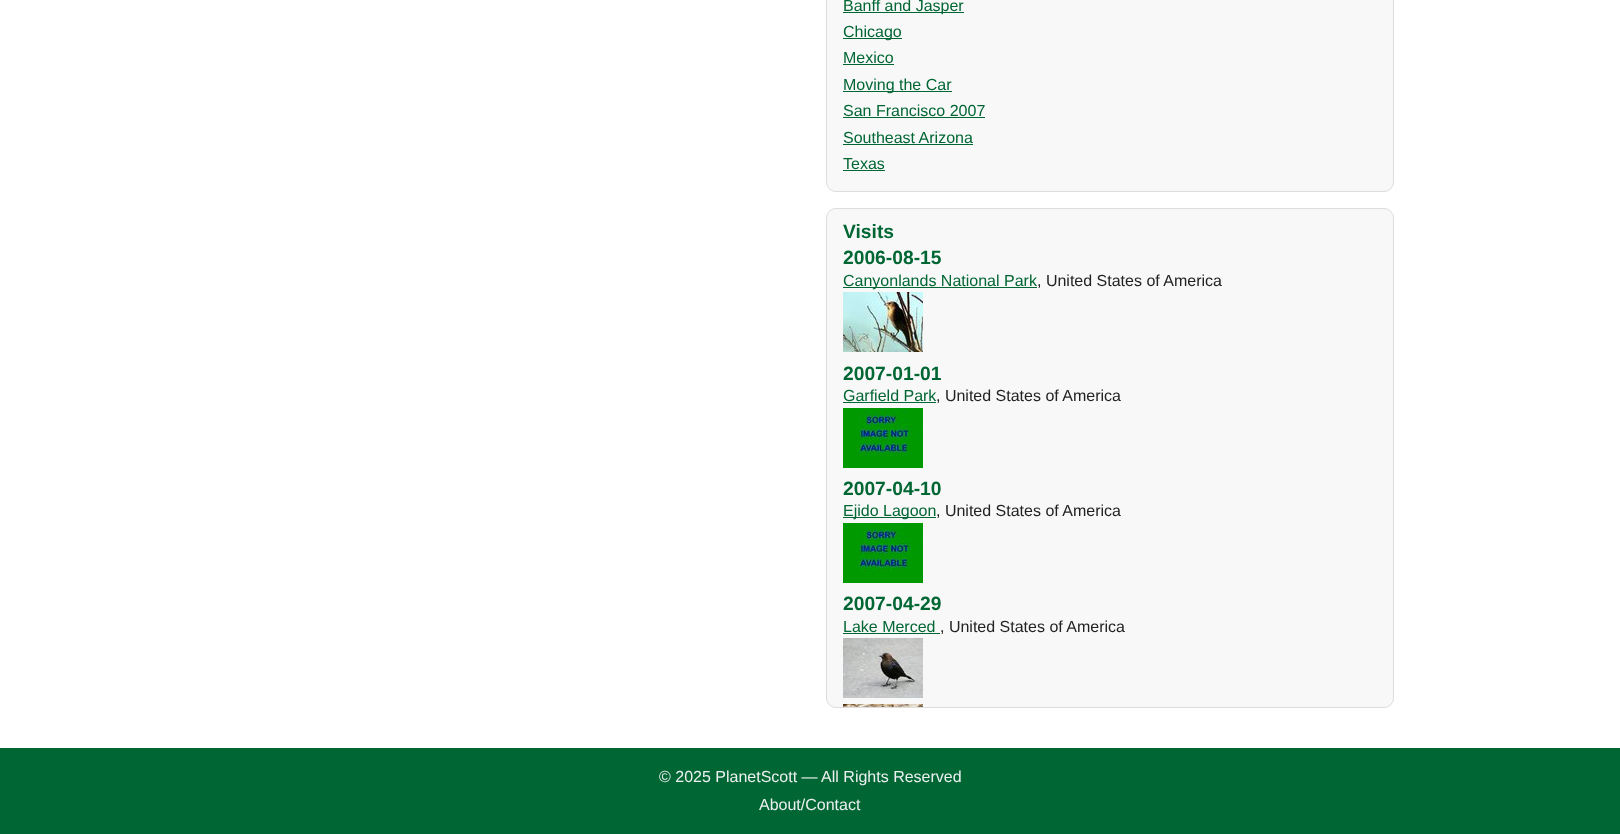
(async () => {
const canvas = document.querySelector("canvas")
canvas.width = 1620
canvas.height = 834
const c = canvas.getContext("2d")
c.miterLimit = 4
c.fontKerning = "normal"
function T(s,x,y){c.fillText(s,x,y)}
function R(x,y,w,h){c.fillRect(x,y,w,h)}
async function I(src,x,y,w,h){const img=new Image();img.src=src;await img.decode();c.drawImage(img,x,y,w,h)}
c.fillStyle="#fff"
R(0,0,1620,834)
c.fillStyle="#f8f8f8"
c.beginPath()
c.roundRect(826.5,-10.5,567,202,9.5)
c.fill()
c.strokeStyle="#ddd"
c.stroke()
c.fillStyle="#063"
R(843,12,121,1)
c.font="16px Liberation Sans"
T("Banff and Jasper",843,11)
R(843,38,59,1)
T("Chicago",843,37)
T("Mexico",843,63)
R(843,64,51,1)
R(843,91,109,1)
T("Moving the Car",843,90)
T("San Francisco 2007",843,116)
R(843,117,142,1)
T("Southeast Arizona",843,143)
R(843,144,130,1)
T("Texas",843,169)
R(843,170,42,1)
c.fillStyle="#f8f8f8"
c.beginPath()
c.roundRect(826.5,208.5,567,499,9.5)
c.fill()
c.stroke()
c.font="bold 19.25px Liberation Sans"
c.fillStyle="#063"
T("Visits",843,238)
T("2006-08-15",843,264)
R(843,287,194,1)
c.font="16px Liberation Sans"
T("Canyonlands National Park",843,286)
c.fillStyle="#222"
T(", United States of America",1037,286)
await I("1.png",843,292,80,60)
c.font="bold 19.25px Liberation Sans"
c.fillStyle="#063"
T("2007-01-01",843,380)
c.font="16px Liberation Sans"
T("Garfield Park",843,401)
R(843,402,93,1)
c.fillStyle="#222"
T(", United States of America",936,401)
await I("2.png",843,408,80,60)
c.font="bold 19.25px Liberation Sans"
c.fillStyle="#063"
T("2007-04-10",843,495)
R(843,517,93,1)
c.font="16px Liberation Sans"
T("Ejido Lagoon",843,516)
c.fillStyle="#222"
T(", United States of America",936,516)
await I("2.png",843,523,80,60)
c.font="bold 19.25px Liberation Sans"
c.fillStyle="#063"
T("2007-04-29",843,610)
c.font="16px Liberation Sans"
T("Lake Merced",843,632)
R(843,633,97,1)
c.fillStyle="#222"
T(", United States of America",940,632)
await I("3.png",843,638,80,60)
await I("4.png",843,704,80,3)
c.fillStyle="#063"
R(0,748,1620,86)
c.fillStyle="#ecf0f1"
T("© 2025 PlanetScott — All Rights Reserved",659,782)
T("About/Contact",759,810)
})()
